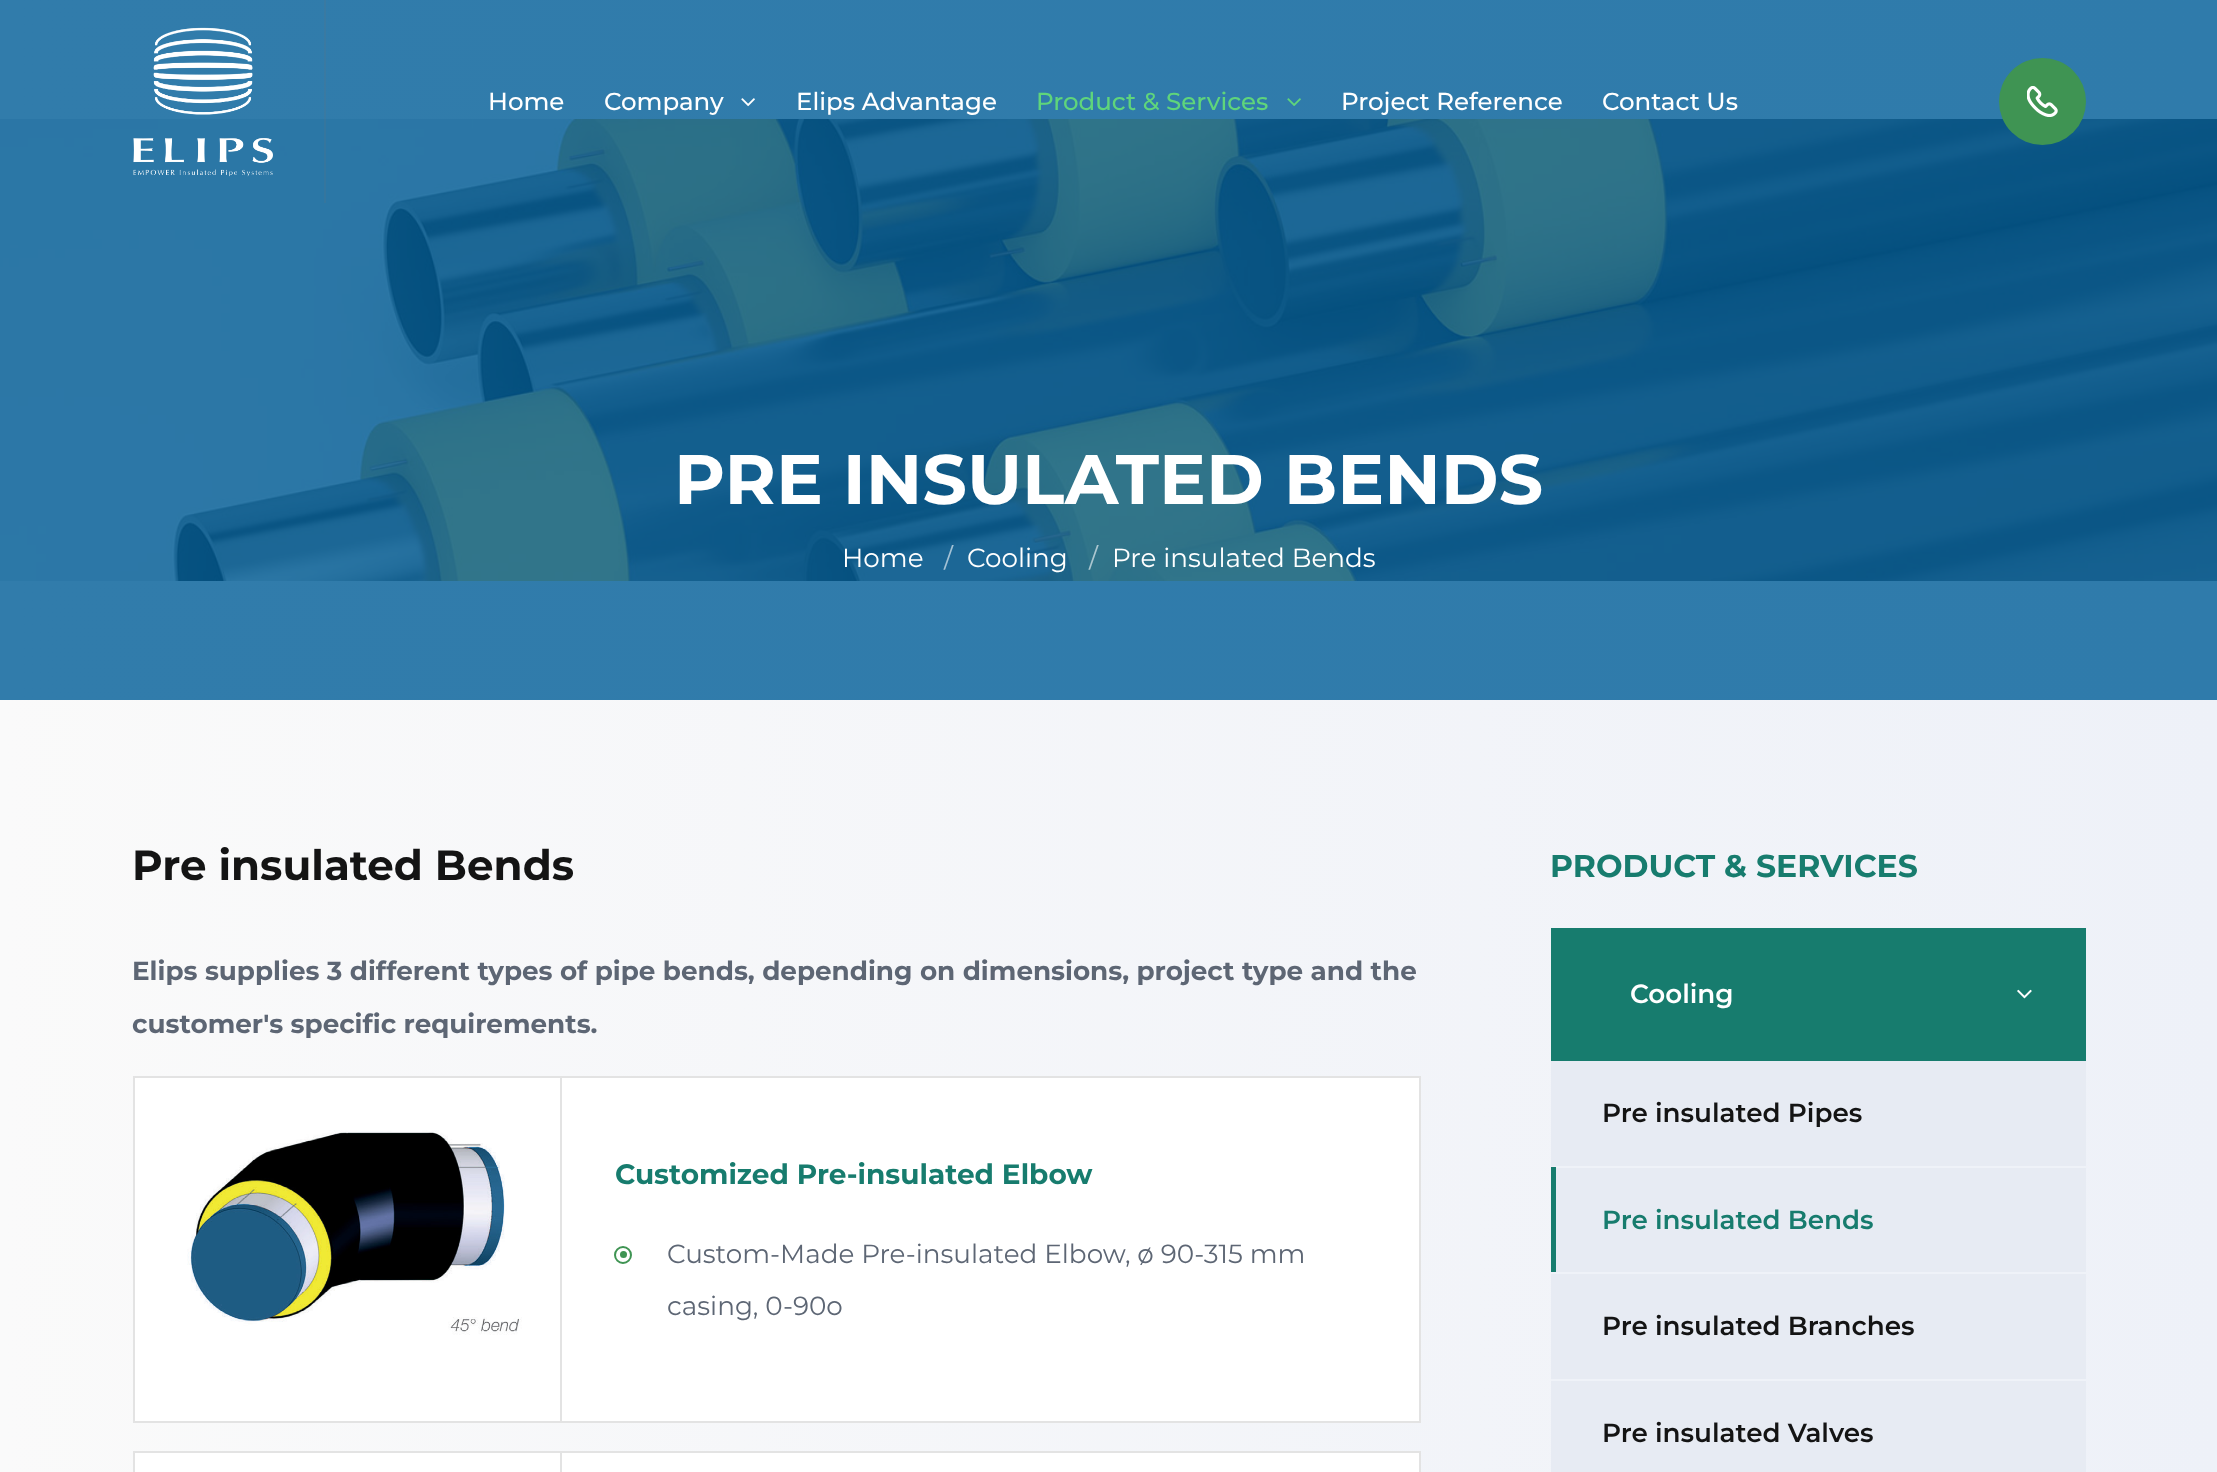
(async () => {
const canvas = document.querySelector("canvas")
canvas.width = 2217
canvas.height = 1472
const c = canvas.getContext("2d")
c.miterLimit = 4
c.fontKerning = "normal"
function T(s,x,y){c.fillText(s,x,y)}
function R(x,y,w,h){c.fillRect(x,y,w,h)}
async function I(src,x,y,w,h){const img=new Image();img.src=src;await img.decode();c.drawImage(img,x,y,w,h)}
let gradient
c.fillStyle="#fff"
R(0,0,2217,1472)
gradient = c.createLinearGradient(0,1177,2217,1177)
gradient.addColorStop(0,"#fafafa")
gradient.addColorStop(1,"#eef1f8")
c.fillStyle = gradient
R(0,700,2217,772)
gradient = c.createLinearGradient(0,1177,2217,1177)
gradient.addColorStop(0,"#317cab")
gradient.addColorStop(1,"#2f7bab")
c.fillStyle = gradient
R(0,0,2217,700)
await I("5.png",0,119,2217,462)
c.fillStyle="#70707026"
R(324,0,2,203)
await I("1.png",133,27,140,150)
c.font="500 24.5px Montserrat"
c.fillStyle="#fff"
T("Home",488,110)
T("Company",604,110)
await I("2.png",741,98,14,9)
T("Elips Advantage",796,110)
c.fillStyle="#5fd57b"
T("Product & Services",1036,110)
await I("3.png",1287,98,14,8)
c.fillStyle="#fff"
T("Project Reference",1341,110)
T("Contact Us",1602,110)
c.fillStyle="#3f9453"
c.beginPath()
c.arc(2042.5,101.5,43.5,0,7)
c.fill()
await I("4.png",2027,86,31,31)
c.font="bold 70px Montserrat"
c.fillStyle="#fff"
T("PRE INSULATED BENDS",674,504)
c.font="26.25px Montserrat"
T("Home",842,567)
c.fillStyle="#a4c2d5"
T("/",944,567)
c.fillStyle="#fff"
T("Cooling",967,567)
c.fillStyle="#acc7d0"
T("/",1089,567)
c.fillStyle="#fff"
T("Pre insulated Bends",1112,567)
c.font="bold 42px Montserrat"
c.fillStyle="#141414"
T("Pre insulated Bends",132,880)
c.font="bold 26.25px Montserrat"
c.fillStyle="#5d6674"
T("Elips supplies 3 different types of pipe bends, depending on dimensions, project type and the",132,980)
T("customer's specific requirements.",132,1033)
c.fillStyle="#fff"
c.beginPath()
c.rect(134,1077,1286,345)
c.fill()
c.strokeStyle="#e3e3e3"
c.lineWidth=2
c.stroke()
c.fillStyle="#e3e3e3"
R(560,1078,2,343)
await I("6.png",187,1130,335,205)
c.font="bold 28px Montserrat"
c.fillStyle="#177c6e"
T("Customized Pre-insulated Elbow",615,1184)
c.beginPath()
c.arc(623,1255,8,0,7)
c.strokeStyle="#3f9453"
c.stroke()
c.font="26.25px Montserrat"
c.fillStyle="#5d6674"
T("Custom-Made Pre-insulated Elbow, ø 90-315 mm",667,1263)
c.fillStyle="#3f9453"
c.beginPath()
c.arc(623.5,1254.5,3.5,0,7)
c.fill()
c.fillStyle="#5d6674"
T("casing, 0-90o",667,1315)
c.fillStyle="#fff"
c.beginPath()
c.rect(134,1452,1286,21)
c.fill()
c.strokeStyle="#e3e3e3"
c.stroke()
c.fillStyle="#e3e3e3"
R(560,1453,2,19)
c.font="bold 31.5px Montserrat"
c.fillStyle="#177c6e"
T("PRODUCT & SERVICES",1550,877)
R(1551,928,535,133)
c.font="600 26.25px Montserrat"
c.fillStyle="#fff"
T("Cooling",1630,1003)
await I("7.png",2017,989,15,10)
c.fillStyle="#e7ebf3"
R(1551,1061,535,411)
c.fillStyle="#eff2f8"
R(1551,1166,535,2)
c.fillStyle="#141414"
T("Pre insulated Pipes",1602,1122)
c.fillStyle="#eff2f8"
R(1551,1272,535,2)
c.fillStyle="#177c6e"
R(1551,1167,5,105)
T("Pre insulated Bends",1602,1229)
c.fillStyle="#eff2f8"
R(1551,1379,535,2)
c.fillStyle="#141414"
T("Pre insulated Branches",1602,1335)
T("Pre insulated Valves",1602,1442)
})()
